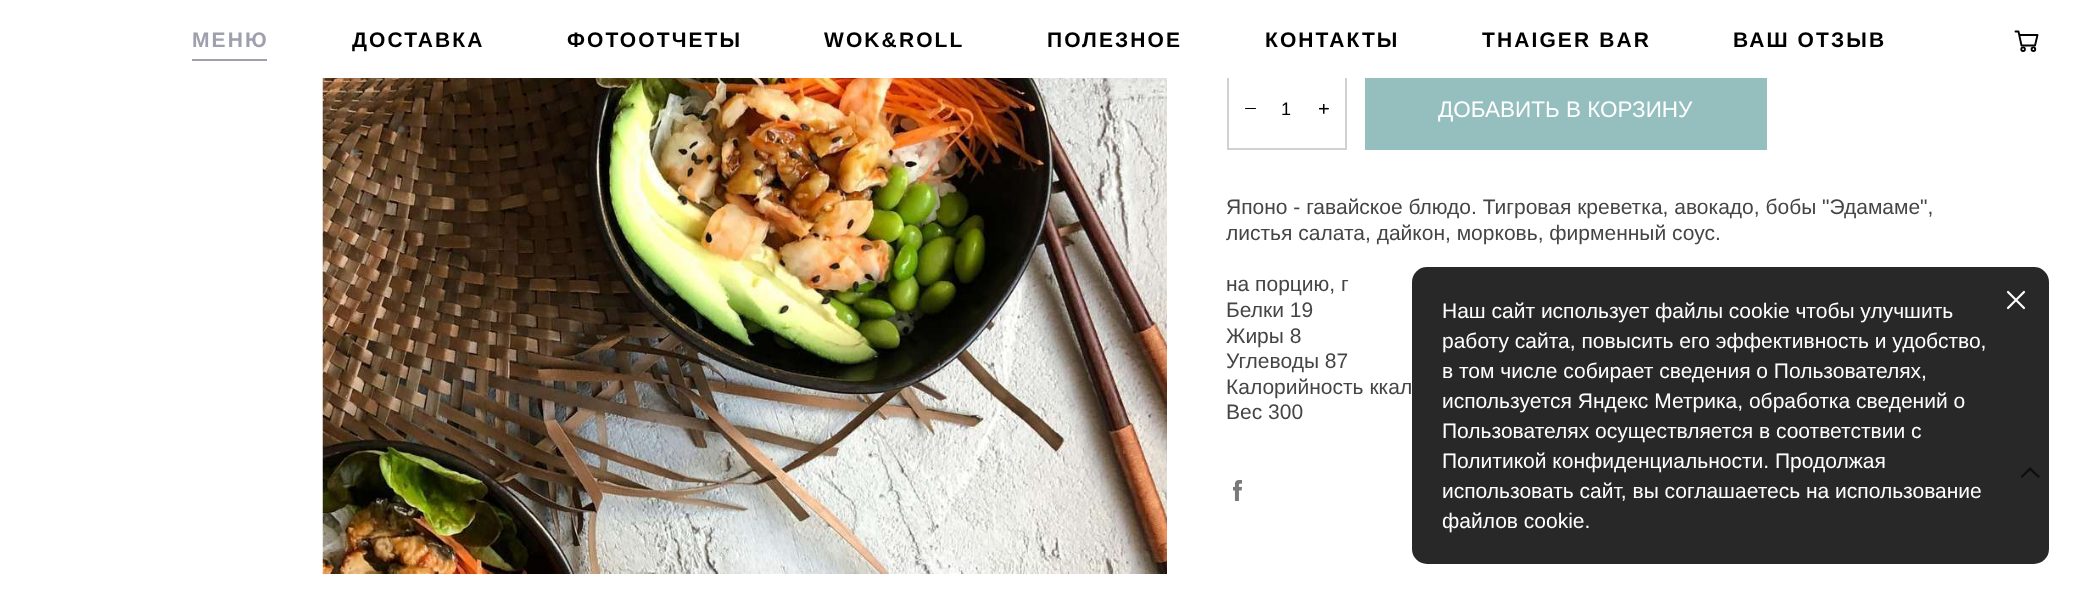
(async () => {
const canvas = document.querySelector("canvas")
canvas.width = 2079
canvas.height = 594
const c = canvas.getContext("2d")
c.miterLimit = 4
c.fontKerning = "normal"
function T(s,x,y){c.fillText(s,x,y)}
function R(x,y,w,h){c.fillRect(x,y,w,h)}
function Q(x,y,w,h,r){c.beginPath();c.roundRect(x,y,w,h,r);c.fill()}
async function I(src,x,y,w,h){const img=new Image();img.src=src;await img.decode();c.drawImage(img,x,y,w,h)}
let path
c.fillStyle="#fff"
R(0,0,2079,594)
c.strokeStyle="#d1d1d1"
c.lineWidth=2
c.strokeRect(1228,69,118,80)
R(1227,68,120,10)
c.letterSpacing="2.1px"
c.font="bold 21px Liberation Sans"
c.fillStyle="#9f9fad"
T("МЕНЮ",192,47)
R(192,59,75,2)
c.fillStyle="#000"
T("ДОСТАВКА",352,47)
T("ФОТООТЧЕТЫ",567,47)
T("WOK&ROLL",824,47)
T("ПОЛЕЗНОЕ",1047,47)
T("КОНТАКТЫ",1265,47)
T("THAIGER BAR",1482,47)
T("ВАШ ОТЗЫВ",1733,47)
path = new Path2D("M2015.5 31.5h3l3 14h13.5l2.5-10.5h-17.5")
c.strokeStyle="#000"
c.lineWidth=1.9
c.lineCap="round"
c.lineJoin="round"
c.stroke(path)
c.beginPath()
c.arc(2023.1,49.2,1.8,0,7)
c.stroke()
c.beginPath()
c.arc(2033.4,49.2,1.8,0,7)
c.stroke()
await I("1.png",322,78,845,496)
Q(1245,108,11,1,.5)
c.letterSpacing="0px"
c.font="18px Liberation Sans"
T("1",1281,115)
await I("2.png",1319,104,10,10)
c.fillStyle="#95bebe"
R(1365,78,402,72)
c.font="22.5px Liberation Sans"
c.fillStyle="#fff"
T("ДОБАВИТЬ В КОРЗИНУ",1438,117)
c.font="21px Liberation Sans"
c.fillStyle="#454545"
T("Японо - гавайское блюдо. Тигровая креветка, авокадо, бобы \"Эдамаме\",",1226,214)
T("листья салата, дайкон, морковь, фирменный соус.",1226,240)
T("на порцию, г",1226,291)
T("Белки 19",1226,317)
T("Жиры 8",1226,343)
T("Углеводы 87",1226,368)
T("Калорийность ккал",1226,394)
T("Вес 300",1226,419)
await I("3.png",1233,480,9,21)
c.fillStyle="#000"
path = new Path2D("M2040 476.5l-1.5 1.5l-8.5-7.5l-8 7.5l-1.5-1.5l9.5-9.5z")
c.fill(path,"evenodd")
c.fillStyle="#111111e6"
Q(1412,267,637,297,15)
path = new Path2D("M2024 292l-16 16m0-16l16 16")
c.strokeStyle="#fff"
c.lineWidth=2.2
c.stroke(path)
c.fillStyle="#fff"
T("Наш сайт использует файлы cookie чтобы улучшить",1442,318)
T("работу сайта, повысить его эффективность и удобство,",1442,348)
T("в том числе собирает сведения о Пользователях,",1442,378)
T("используется Яндекс Метрика, обработка сведений о",1442,408)
T("Пользователях осуществляется в соответствии с",1442,438)
T("Политикой конфиденциальности. Продолжая",1442,468)
T("использовать сайт, вы соглашаетесь на использование",1442,498)
T("файлов cookie.",1442,528)
})()
